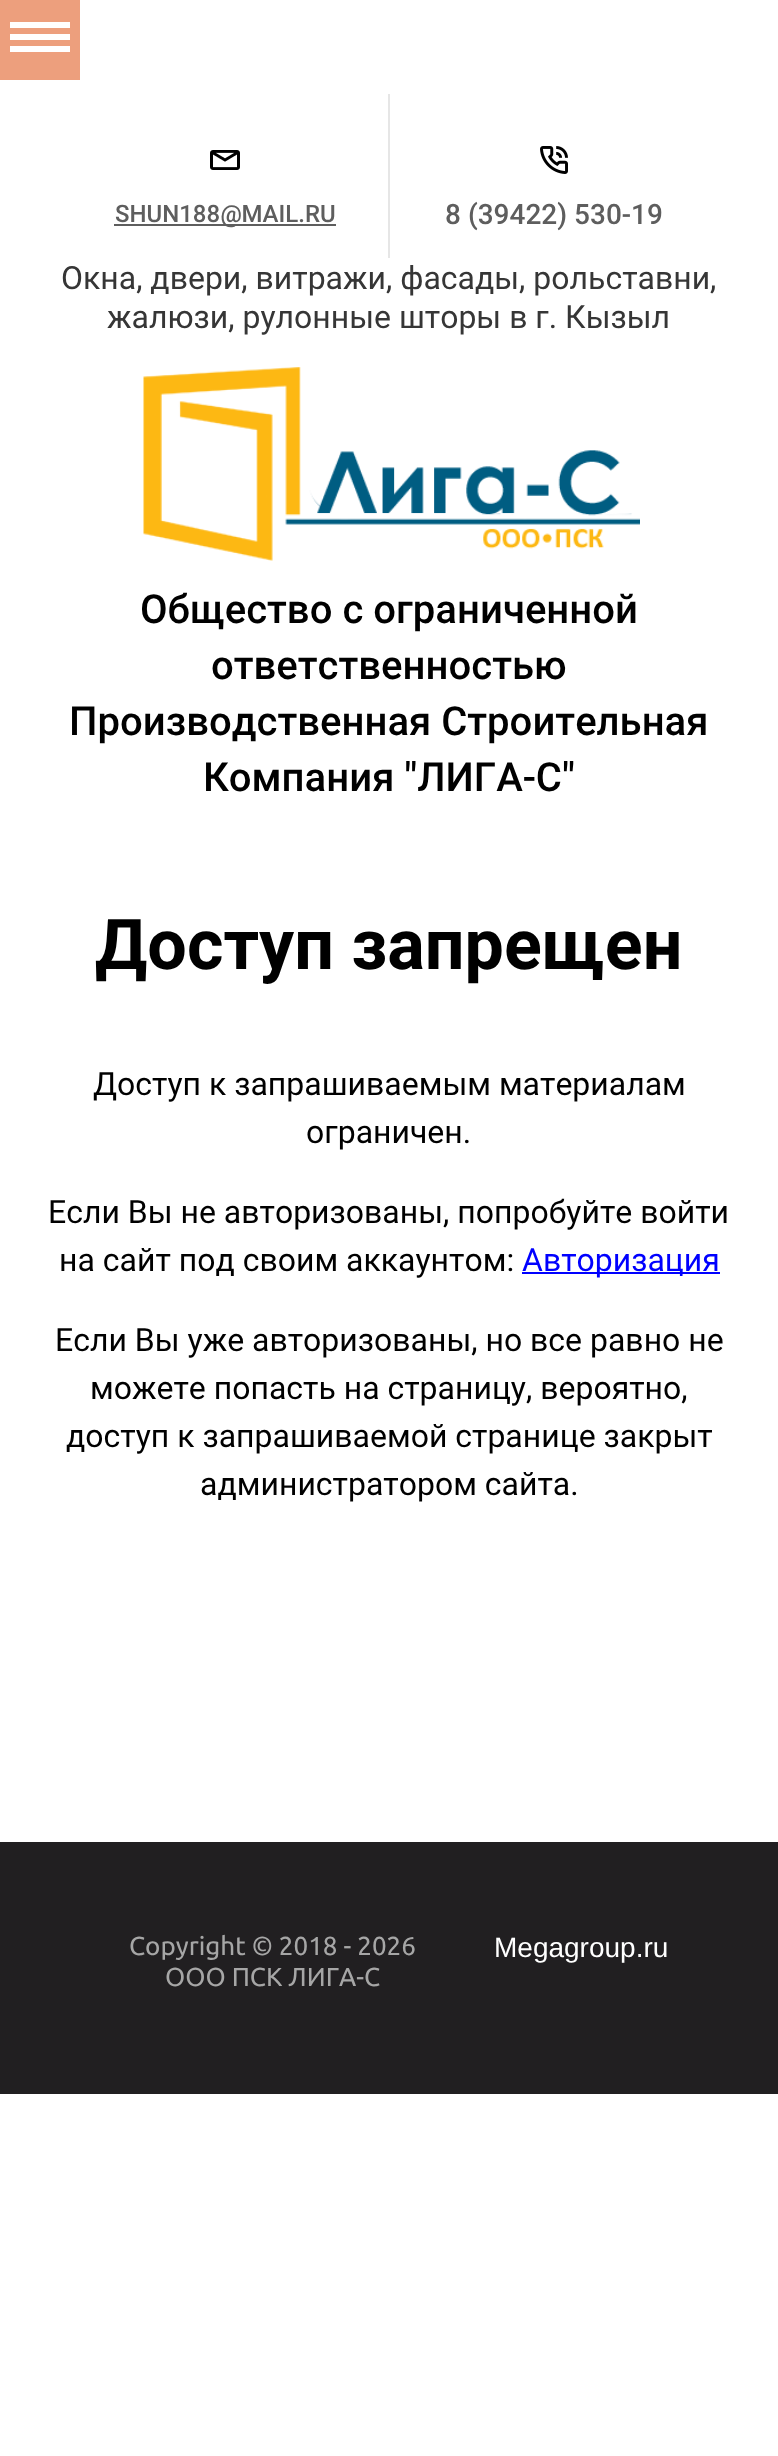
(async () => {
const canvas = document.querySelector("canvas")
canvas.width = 778
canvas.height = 2456
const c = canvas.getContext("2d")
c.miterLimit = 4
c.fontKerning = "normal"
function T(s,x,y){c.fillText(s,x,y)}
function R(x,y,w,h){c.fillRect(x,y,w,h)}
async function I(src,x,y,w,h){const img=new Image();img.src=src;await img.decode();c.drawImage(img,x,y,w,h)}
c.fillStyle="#fff"
R(0,0,778,2456)
c.fillStyle="#ed9f7d"
R(0,0,80,80)
c.fillStyle="#fff"
R(10,22,60,6)
R(10,34,60,6)
R(10,46,60,6)
c.fillStyle="#e6e6e6"
R(388,94,2,164)
await I("1.png",210,150,30,20)
c.fillStyle="#5e5e5e"
R(114,224,222,2)
c.font="500 24px Roboto"
T("SHUN188@MAIL.RU",115,222)
await I("2.png",540,146,28,28)
c.font="500 28px Roboto"
T("8 (39422) 530-19",445,224)
c.font="32px Roboto"
c.fillStyle="#363636"
T("Окна, двери, витражи, фасады, рольставни,",61,289)
T("жалюзи, рулонные шторы в г. Кызыл",107,328)
await I("3.png",143,367,497,194)
c.font="500 40px Roboto"
c.fillStyle="#000"
T("Общество с ограниченной",140,623)
T("ответственностью",211,679)
T("Производственная Строительная",69,735)
T("Компания \"ЛИГА-С\"",203,791)
c.font="bold 70px Roboto"
T("Доступ запрещен",95,969)
c.font="32px Roboto"
T("Доступ к запрашиваемым материалам",93,1095)
T("ограничен.",306,1143)
T("Если Вы не авторизованы, попробуйте войти",48,1223)
T("на сайт под своим аккаунтом:",59,1271)
c.fillStyle="#00f"
R(522,1272,198,2)
T("Авторизация",522,1271)
c.fillStyle="#000"
T("Если Вы уже авторизованы, но все равно не",55,1351)
T("можете попасть на страницу, вероятно,",90,1399)
T("доступ к запрашиваемой странице закрыт",66,1447)
T("администратором сайта.",200,1495)
c.fillStyle="#211f21"
R(0,1842,778,252)
c.font="26px Ubuntu"
c.fillStyle="#a6a6a6"
T("Copyright © 2018 - 2026",129,1955)
T("ООО ПСК ЛИГА-С",165,1986)
c.font="28px Liberation Sans"
c.fillStyle="#fff"
T("Megagroup.ru",494,1957)
})()
